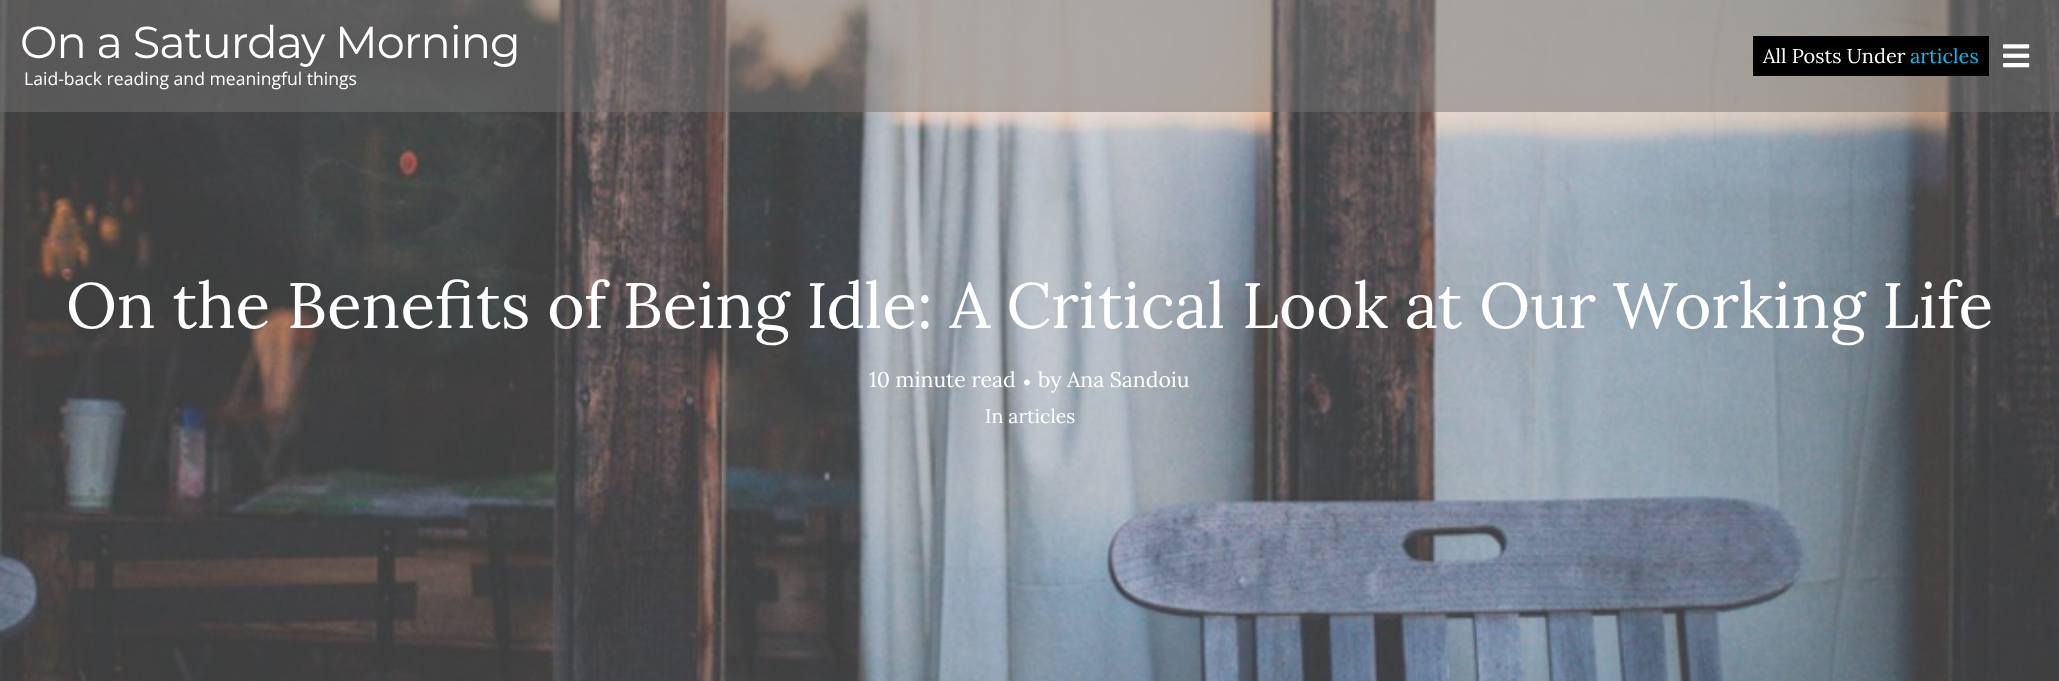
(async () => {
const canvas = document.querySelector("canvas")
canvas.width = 2059
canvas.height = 681
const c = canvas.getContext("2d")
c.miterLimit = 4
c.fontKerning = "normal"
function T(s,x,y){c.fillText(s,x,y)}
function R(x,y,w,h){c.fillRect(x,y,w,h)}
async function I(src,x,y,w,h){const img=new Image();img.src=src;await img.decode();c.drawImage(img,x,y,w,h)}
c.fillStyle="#fff"
R(0,0,2059,681)
await I("2.png",0,0,2059,681)
c.fillStyle="#71717180"
R(0,0,2059,112)
c.letterSpacing="-1px"
c.font="100 44.75px Montserrat"
c.fillStyle="#fff"
T("On a Saturday Morning",20,58)
c.letterSpacing="0px"
c.font="17.6px Open Sans"
T("Laid-back reading and meaningful things",24,85)
c.fillStyle="#000"
R(1753,36,236,40)
c.font="20px Lora"
c.fillStyle="#fff"
T("All Posts Under",1763,63)
c.fillStyle="#00bfef"
T("articles",1910,63)
await I("1.png",2003,44,27,24)
c.font="64px Lora"
c.fillStyle="#fff"
T("On the Benefits of Being Idle: A Critical Look at Our Working Life",66,328)
c.font="21.25px Lora"
T("10 minute read",869,387)
c.font="20px Lora"
T("•",1023,390)
c.font="21.25px Lora"
T("by Ana Sandoiu",1038,387)
c.font="19.5px Lora"
T("In articles",985,423)
})()
